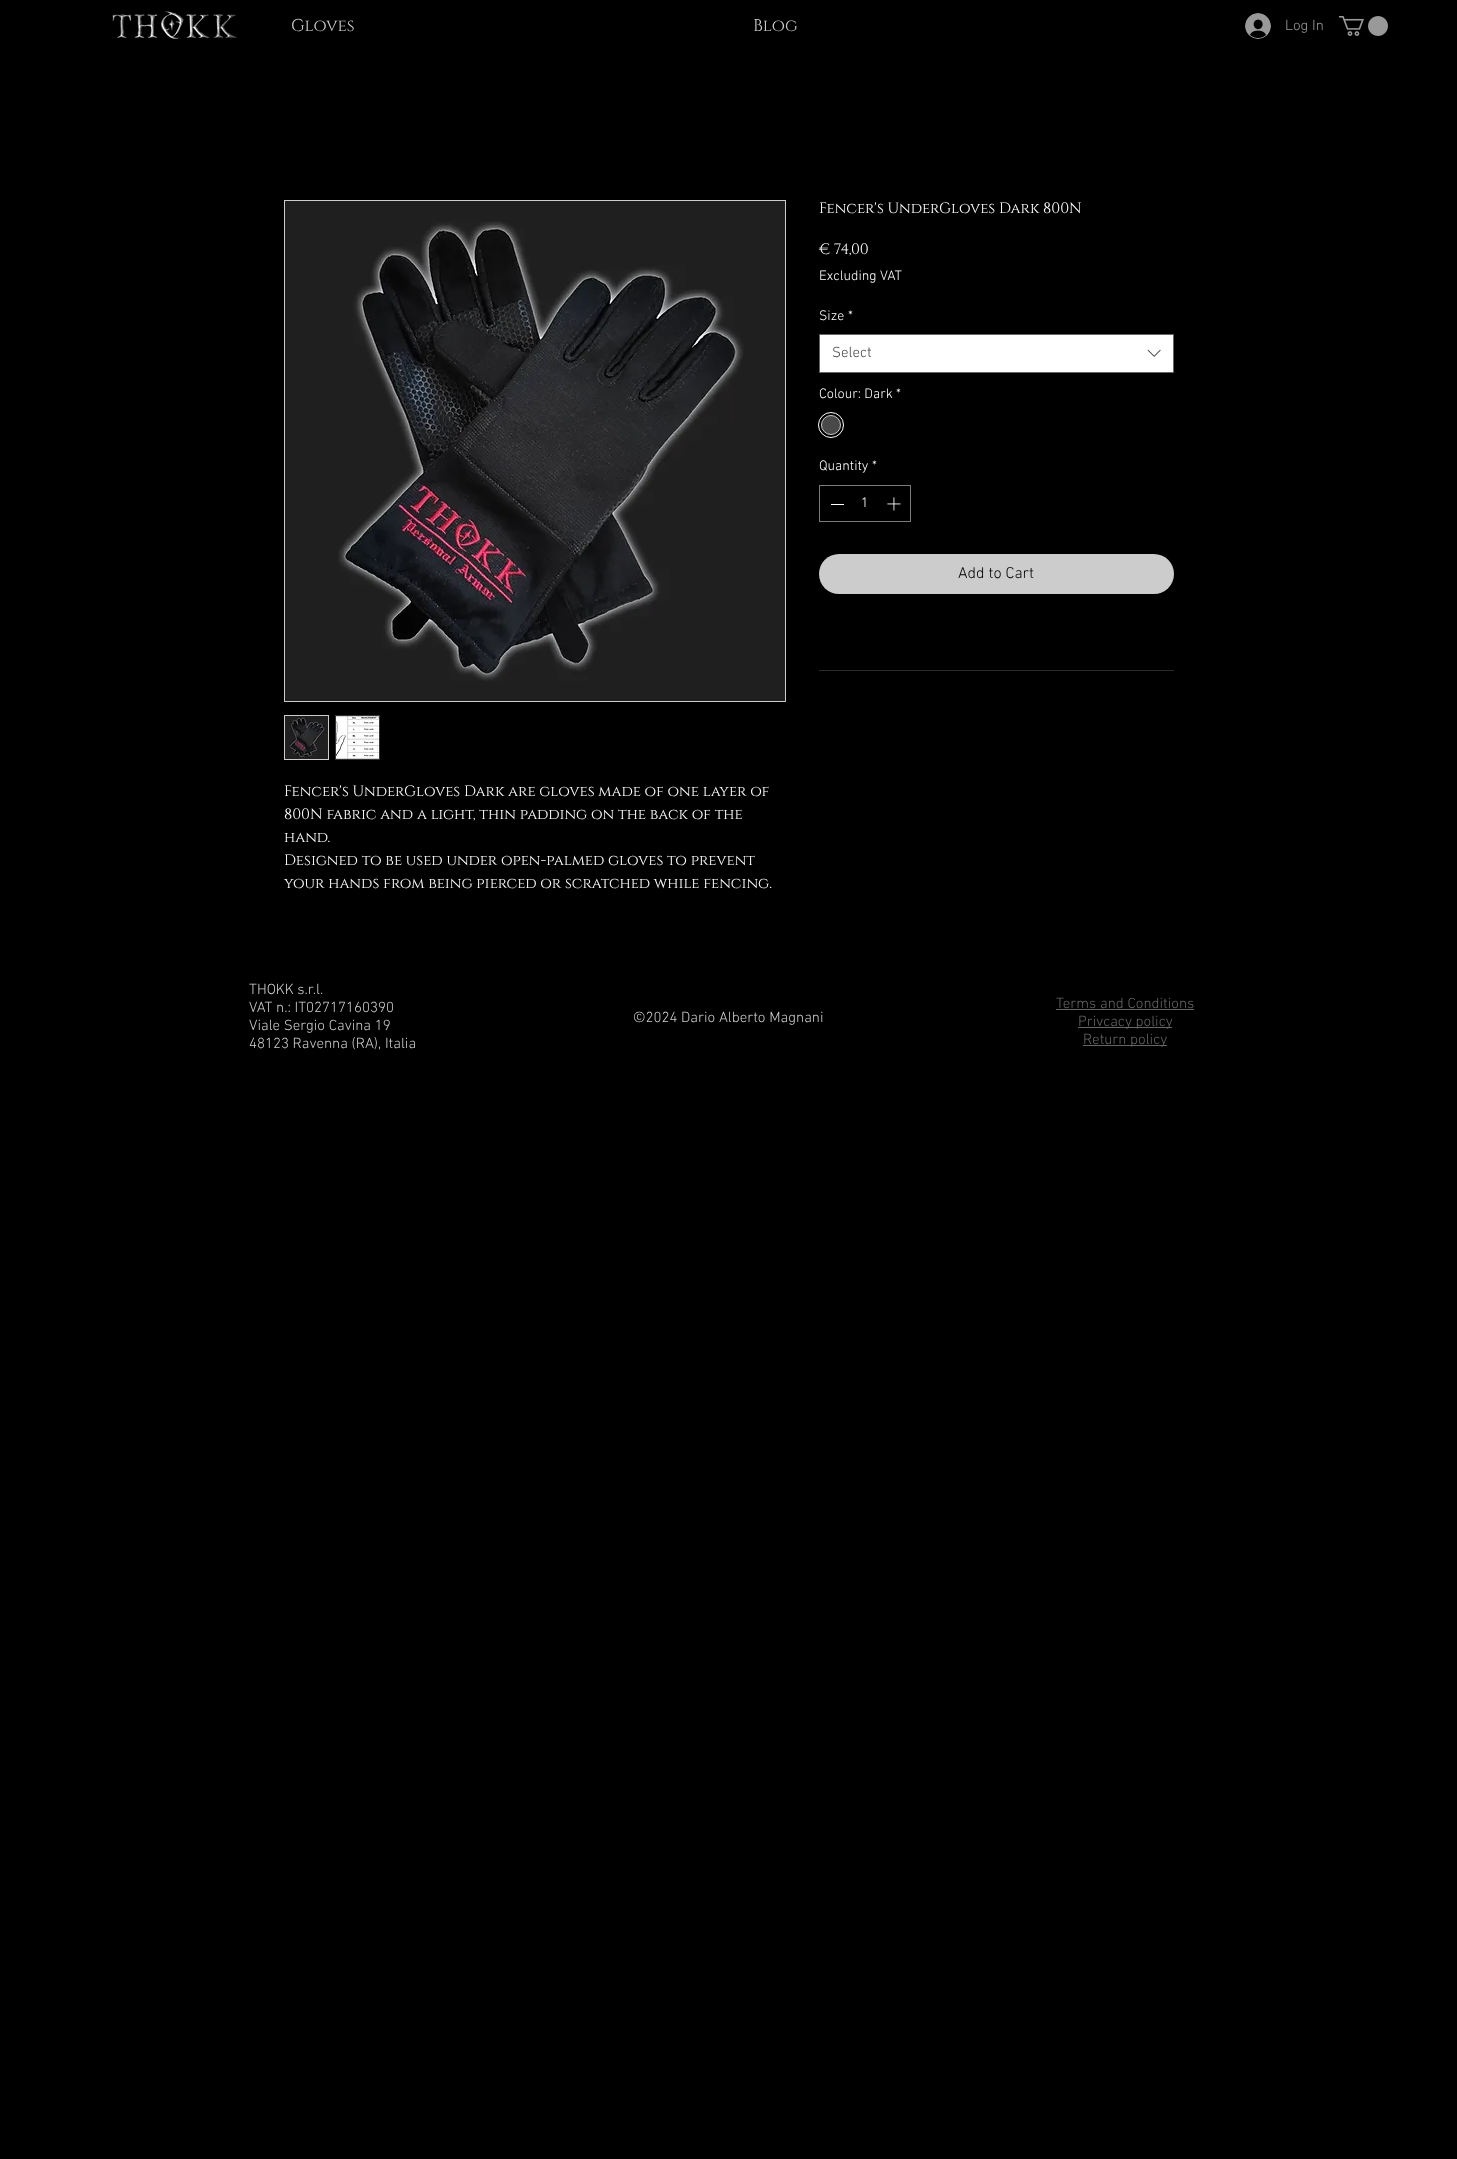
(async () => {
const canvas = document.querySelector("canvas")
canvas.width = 1457
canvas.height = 2159
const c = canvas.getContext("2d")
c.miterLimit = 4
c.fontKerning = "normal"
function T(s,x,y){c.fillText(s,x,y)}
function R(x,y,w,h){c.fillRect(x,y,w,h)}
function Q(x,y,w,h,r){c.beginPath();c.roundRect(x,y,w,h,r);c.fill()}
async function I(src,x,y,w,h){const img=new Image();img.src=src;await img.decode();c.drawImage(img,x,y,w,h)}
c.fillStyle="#000"
R(0,0,1457,2159)
await I("1.png",112,11,125,28)
c.font="17px Cinzel"
c.fillStyle="#ccc"
T("Gloves",291,31)
T("Blog",753,31)
await I("2.png",1245,13,26,26)
c.font="300 15px 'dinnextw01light'"
c.fillStyle="#999"
T("Log In",1285,30)
await I("3.png",1339,16,49,20)
c.font="15px Cinzel"
c.fillStyle="#fff"
T("Fencer's UnderGloves Dark 800N",819,213)
T("€ 74,00",819,254)
c.font="300 14px 'dinnextw01light'"
T("Excluding VAT",819,280)
T("Size",819,320)
T("*",848,320)
c.beginPath()
c.rect(819.5,334.5,354,38)
c.fill()
c.strokeStyle="#666"
c.stroke()
c.font="300 15px 'dinnextw01light'"
c.fillStyle="#444"
T("Select",832,357)
await I("4.png",1147,349,14,8)
c.font="300 14px 'dinnextw01light'"
c.fillStyle="#fff"
T("Colour: Dark",819,398)
T("*",896,398)
c.beginPath()
c.arc(831,425,12.5,0,7)
c.strokeStyle="#fff"
c.stroke()
c.fillStyle="#494949"
c.beginPath()
c.arc(831,425,9.5,0,7)
c.fill()
c.strokeStyle="#c9c9c9"
c.stroke()
c.fillStyle="#fff"
T("Quantity",819,470)
T("*",872,470)
c.strokeStyle="#7a7a7a"
c.strokeRect(819.5,485.5,91,36)
R(831,504,13,1)
T("1",861,507)
await I("5.png",887,497,14,14)
c.fillStyle="#ccc"
Q(819,554,355,40,20)
c.font="300 16px 'dinnextw01light'"
c.fillStyle="#000"
T("Add to Cart",958,578)
c.fillStyle="#292929"
R(819,670,355,1)
c.strokeStyle="#ccc"
c.strokeRect(284.5,200.5,501,501)
await I("6.png",285,201,500,500)
c.strokeRect(284.5,715.5,44,44)
await I("7.png",285,716,43,43)
c.fillStyle="#333"
R(335,715,45,45)
await I("8.png",336,716,43,43)
c.font="15px Cinzel"
c.fillStyle="#fff"
T("Fencer's UnderGloves Dark are gloves made of one layer of",284,796)
T("800N fabric and a light, thin padding on the back of the",284,819)
T("hand.",284,842)
T("Designed to be used under open-palmed gloves to prevent",284,865)
T("your hands from being pierced or scratched while fencing.",284,888)
c.font="300 15px 'dinnextw01light'"
c.fillStyle="#ccc"
T("THOKK s.r.l.",249,994)
T("VAT n.: IT02717160390",249,1012)
T("Viale Sergio Cavina 19",249,1030)
T("48123 Ravenna (RA), Italia",249,1048)
c.fillStyle="#666"
T("Terms and Conditions",1056,1008)
R(1056,1009,138,1)
c.fillStyle="#ccc"
T("©2024 Dario Alberto Magnani",633,1022)
c.fillStyle="#666"
R(1078,1027,94,1)
T("Privcacy policy",1078,1026)
R(1083,1045,84,1)
T("Return policy",1083,1044)
})()
